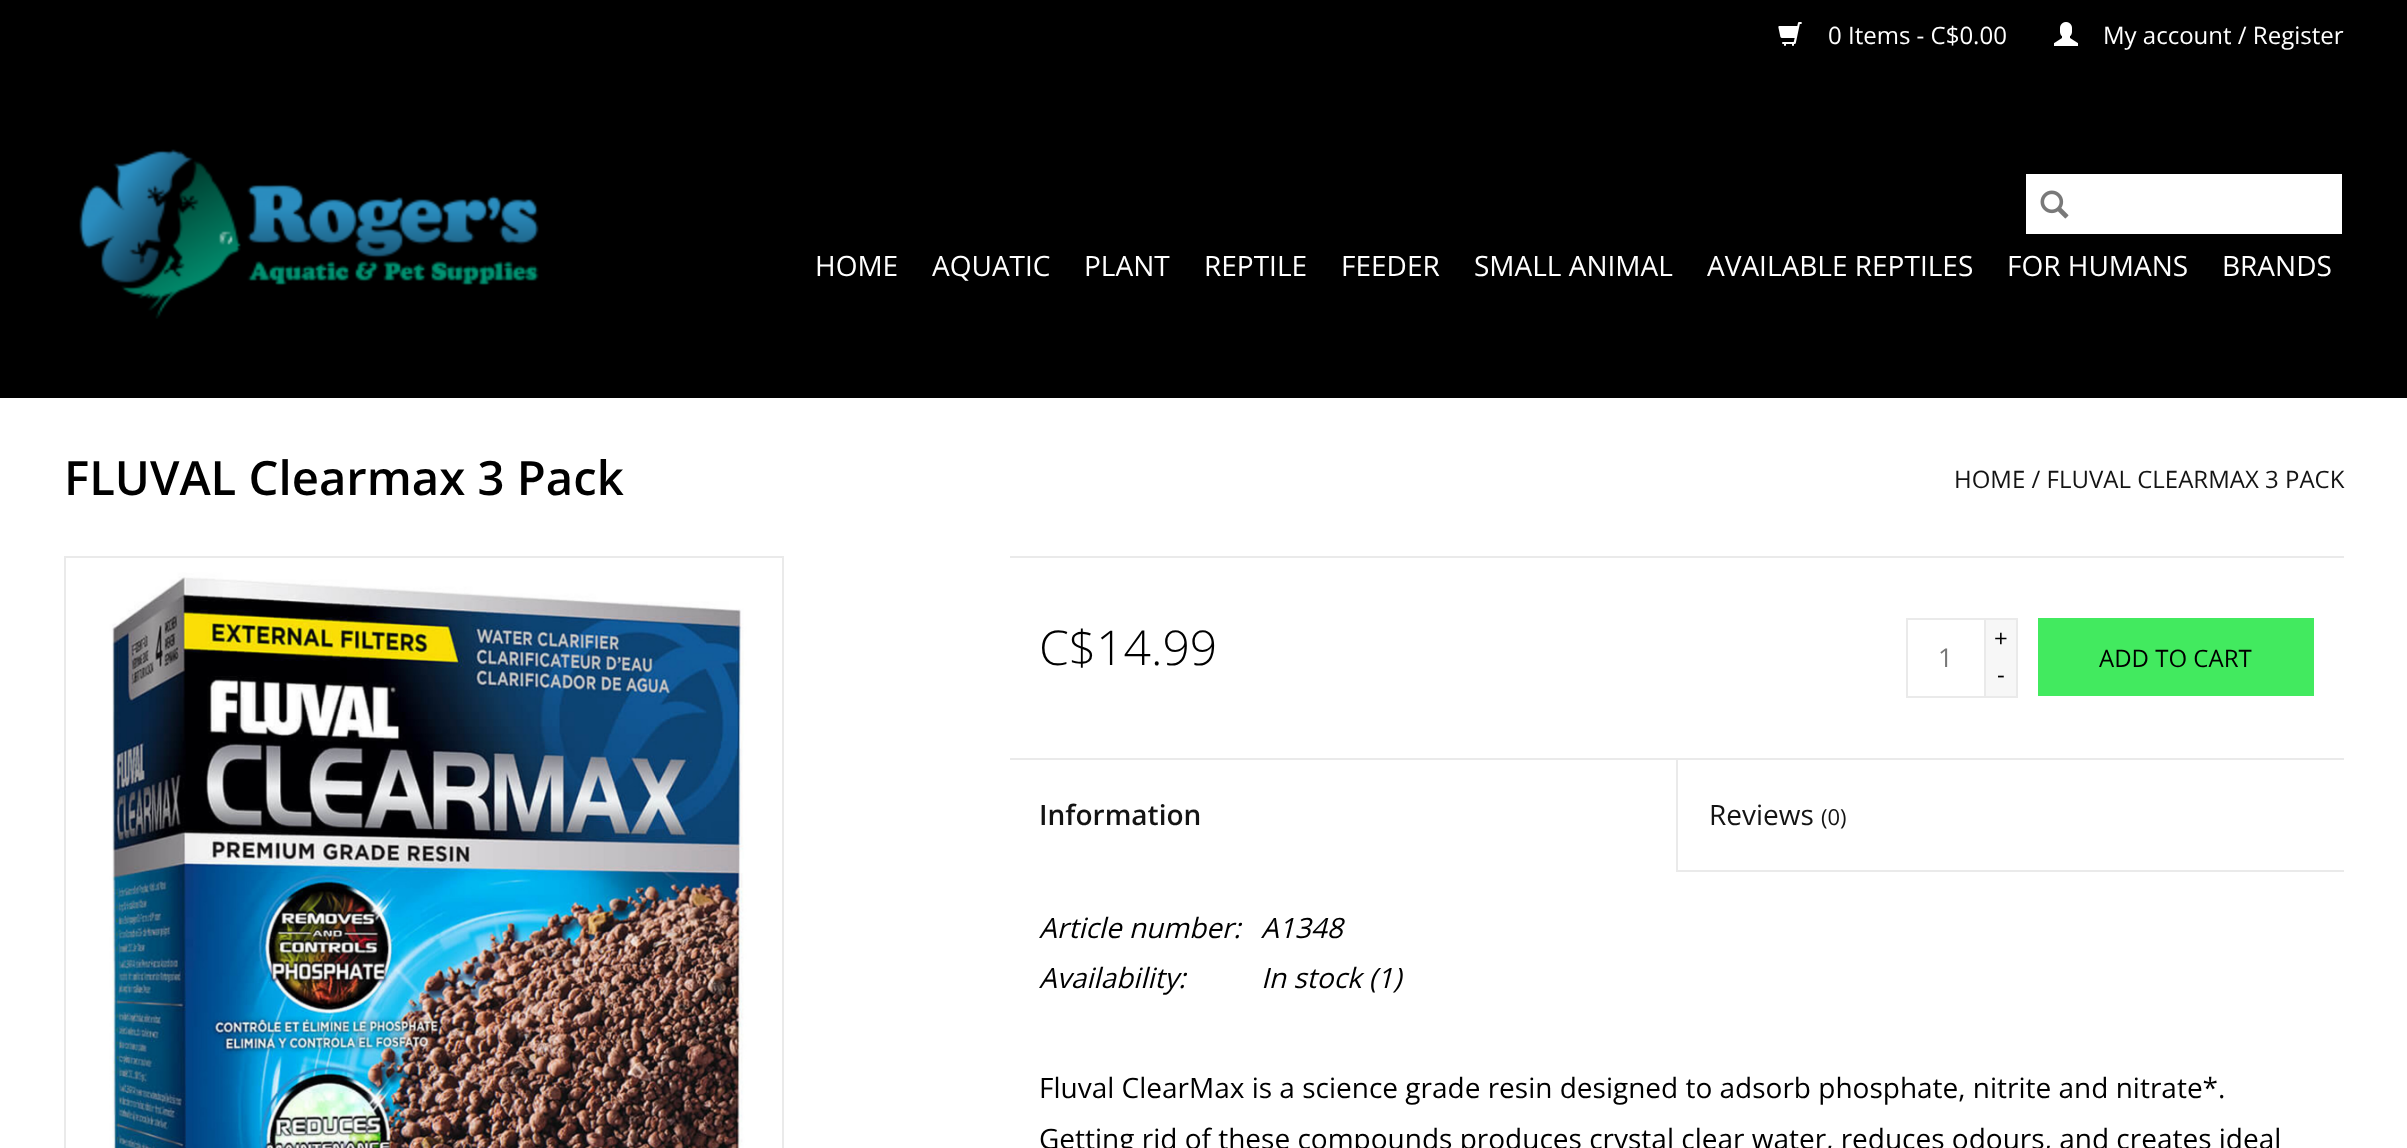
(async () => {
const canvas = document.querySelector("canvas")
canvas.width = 2407
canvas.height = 1148
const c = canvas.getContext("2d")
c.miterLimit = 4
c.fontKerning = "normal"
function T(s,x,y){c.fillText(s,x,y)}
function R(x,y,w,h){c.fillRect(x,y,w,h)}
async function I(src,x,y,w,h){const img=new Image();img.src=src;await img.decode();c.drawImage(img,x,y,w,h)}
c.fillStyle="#fff"
R(0,0,2407,1148)
c.fillStyle="#000"
R(0,0,2407,398)
await I("1.png",1778,22,24,24)
c.font="24px Open Sans"
c.fillStyle="#fff"
T("0 Items - C$0.00",1828,44)
await I("2.png",2054,22,24,24)
T("My account / Register",2103,44)
await I("3.png",79,149,460,170)
R(2026,174,316,60)
await I("4.png",2040,190,29,29)
c.font="28px Open Sans"
T("HOME",815,276)
T("AQUATIC",932,276)
T("PLANT",1084,276)
T("REPTILE",1204,276)
T("FEEDER",1341,276)
T("SMALL ANIMAL",1474,276)
T("AVAILABLE REPTILES",1707,276)
T("FOR HUMANS",2007,276)
T("BRANDS",2222,276)
c.font="600 47.25px Open Sans"
c.fillStyle="#000"
T("FLUVAL Clearmax 3 Pack",64,495)
c.font="24px Open Sans"
c.fillStyle="#141414"
T("HOME / FLUVAL CLEARMAX 3 PACK",1954,488)
c.strokeStyle="#eaeaea"
c.lineWidth=2
c.strokeRect(65,557,718,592)
await I("5.png",66,558,716,590)
c.fillStyle="#eaeaea"
R(1010,556,1334,2)
c.font="300 48px Open Sans"
c.fillStyle="#000"
T("C$14.99",1039,665)
c.strokeRect(1907,619,78,78)
c.font="26px Open Sans"
c.fillStyle="#777"
T("1",1938,667)
c.fillStyle="#f7f7f7"
R(1986,620,30,76)
c.fillStyle="#eaeaea"
R(1986,618,32,2)
R(2016,618,2,80)
R(1986,696,32,2)
c.font="24px Open Sans"
c.fillStyle="#000"
T("+",1994,647)
T("-",1997,683)
c.fillStyle="#42ea5f"
R(2038,618,276,78)
c.fillStyle="#000"
T("ADD TO CART",2099,667)
c.fillStyle="#eaeaea"
R(1010,758,1334,2)
c.font="600 28px Open Sans"
c.fillStyle="#141414"
T("Information",1039,825)
c.fillStyle="#eaeaea"
R(1676,870,668,2)
R(1676,760,2,112)
c.font="28px Open Sans"
c.fillStyle="#141414"
T("Reviews",1709,825)
c.font="22px Open Sans"
T("(0)",1821,825)
c.font="italic 28px Open Sans"
c.fillStyle="#000"
T("Article number:",1039,938)
T("A1348",1261,938)
T("Availability:",1039,988)
T("In stock (1)",1261,988)
c.font="28px Open Sans"
T("Fluval ClearMax is a science grade resin designed to adsorb phosphate, nitrite and nitrate*.",1039,1098)
T("Getting rid of these compounds produces crystal clear water, reduces odours, and creates ideal",1039,1149)
})()
